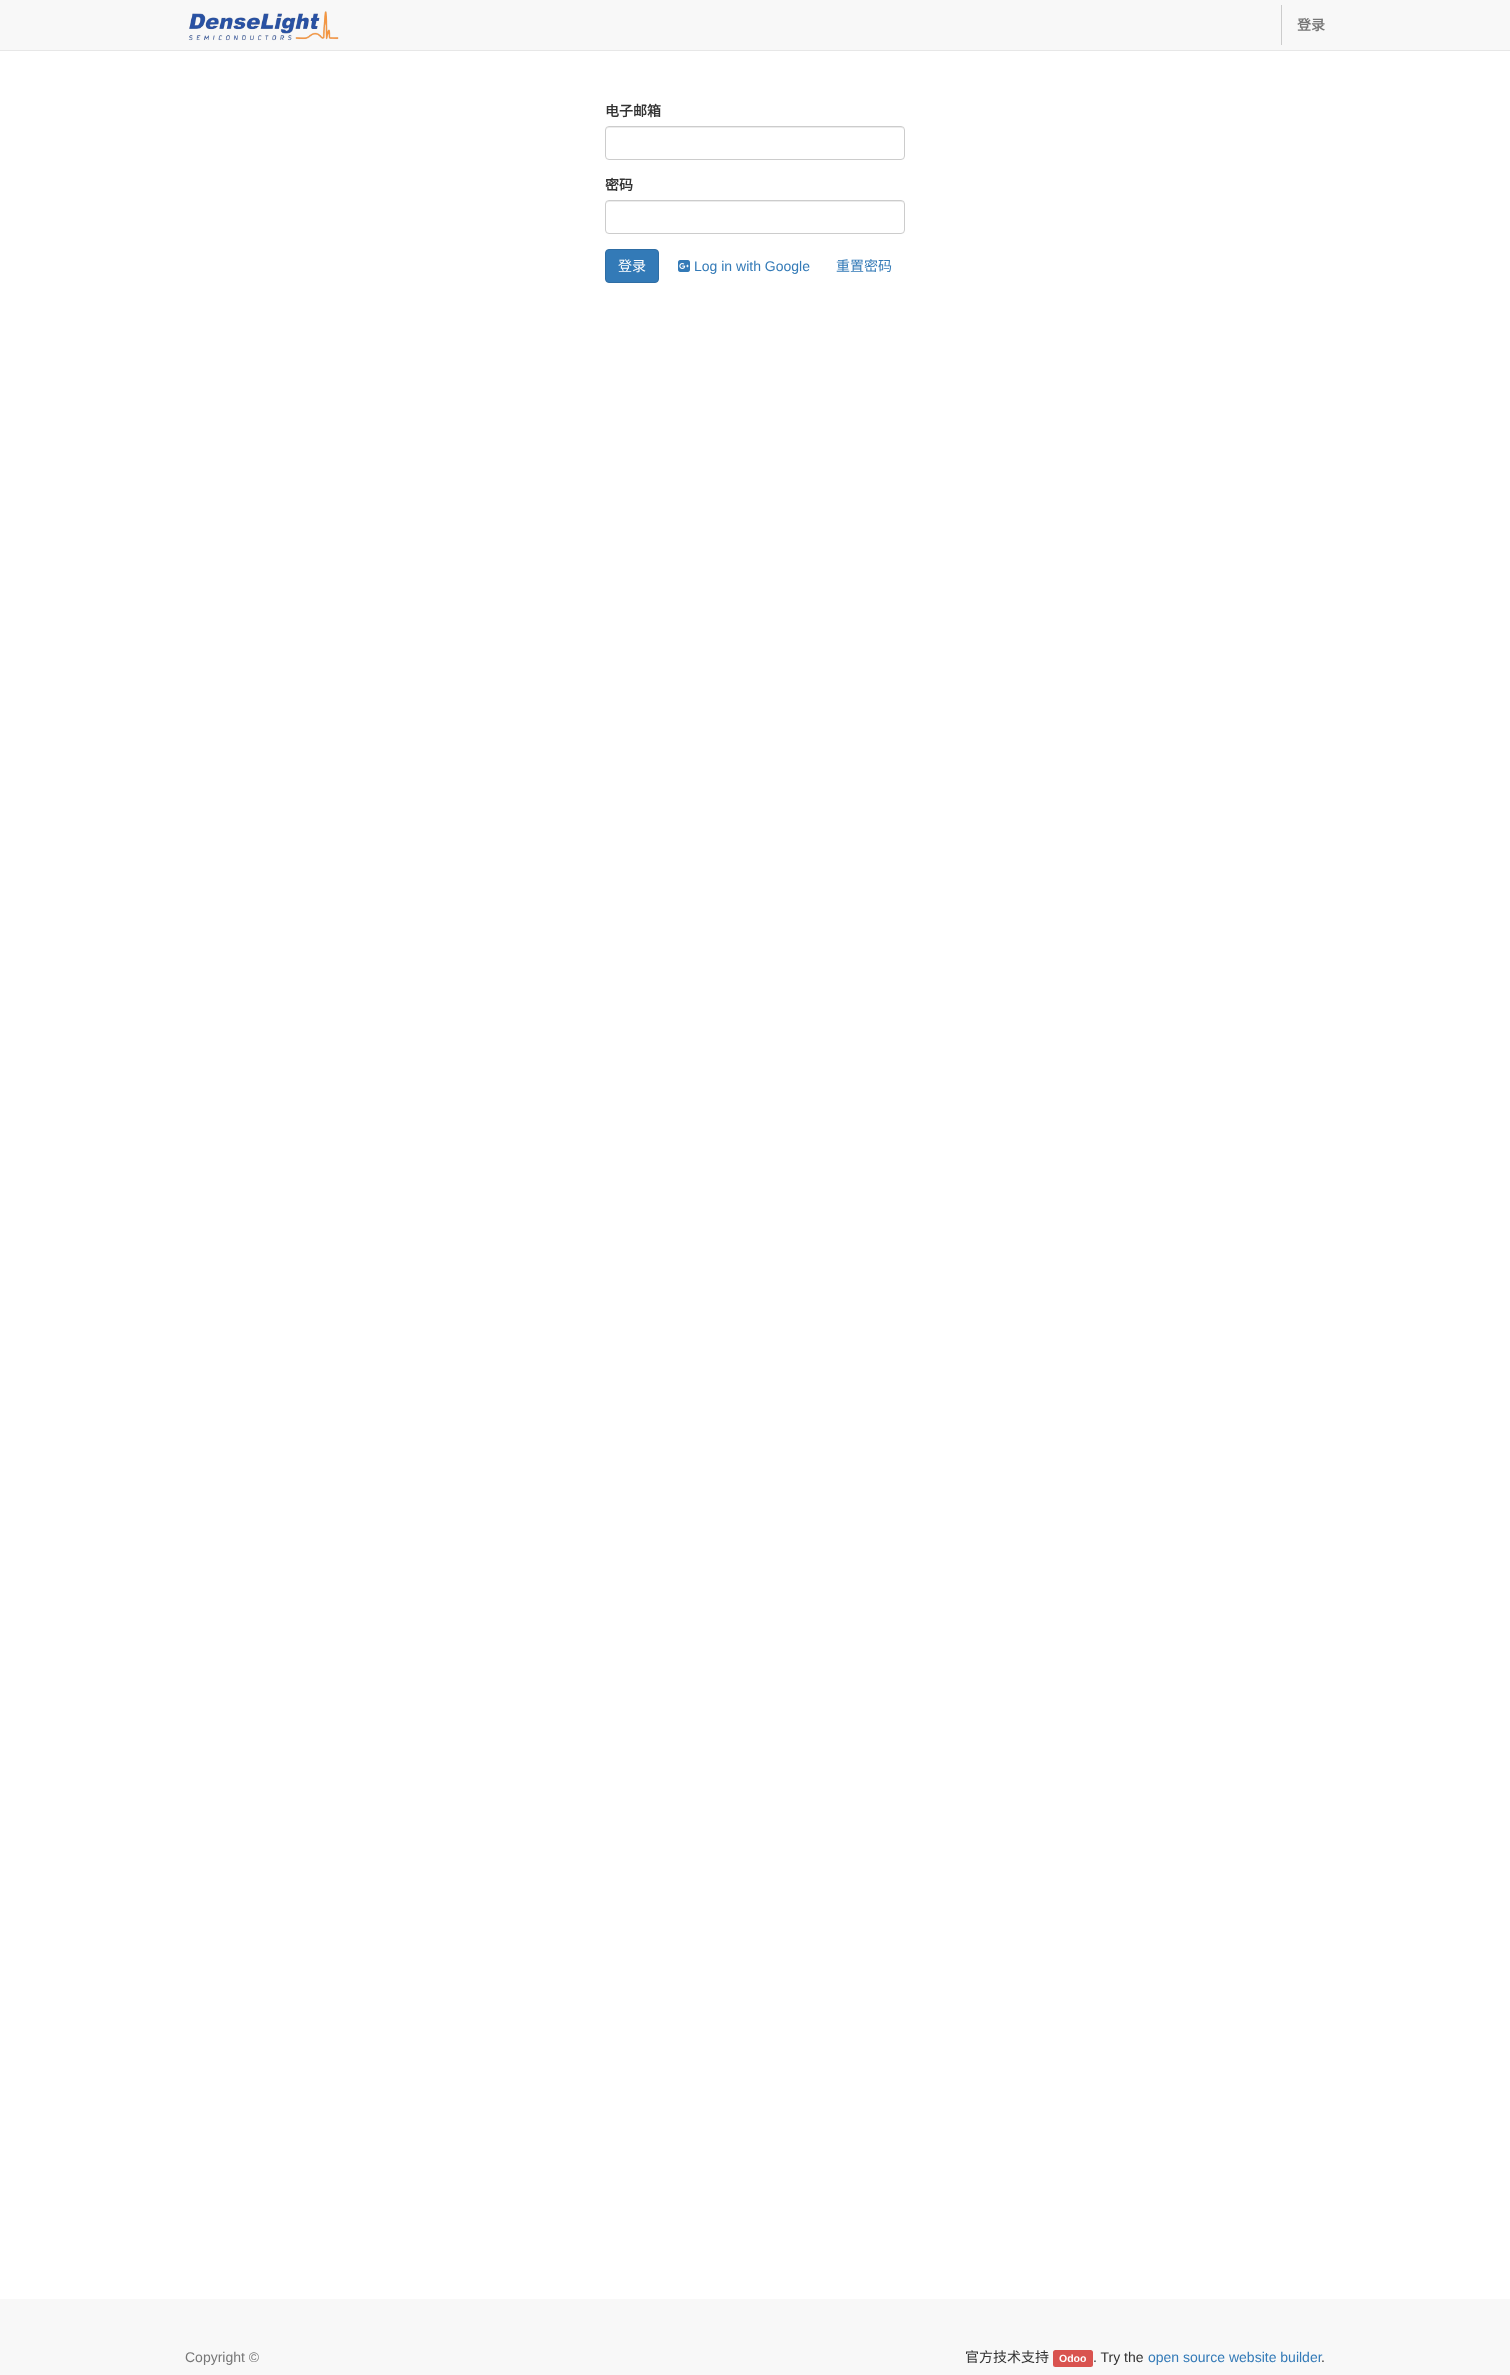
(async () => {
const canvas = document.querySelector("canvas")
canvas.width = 1510
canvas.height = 2375
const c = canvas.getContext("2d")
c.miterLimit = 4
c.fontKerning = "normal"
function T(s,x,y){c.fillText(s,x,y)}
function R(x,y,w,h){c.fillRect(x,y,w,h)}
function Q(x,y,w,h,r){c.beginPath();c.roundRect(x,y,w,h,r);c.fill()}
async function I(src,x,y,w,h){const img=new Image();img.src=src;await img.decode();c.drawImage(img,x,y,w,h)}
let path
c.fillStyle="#fff"
R(0,0,1510,2375)
c.fillStyle="#f8f8f8"
R(0,0,1510,50)
c.fillStyle="#e7e7e7"
R(0,50,1510,1)
await I("1.png",188,11,151,30)
c.fillStyle="#ccc"
R(1281,5,1,40)
c.font="bold 14px Noto Sans CJK SC"
c.fillStyle="#777"
T("登录",1297,30)
c.fillStyle="#333"
T("电子邮箱",605,116)
c.fillStyle="#ececec"
path = new Path2D("M609 128h292c2 0 3 1 3 3l-1-3l-1-1h-293c-2 0-3 2-3 4c0-2 1-3 3-3z")
c.fill(path)
c.beginPath()
c.roundRect(605.5,126.5,299,33,3.5)
c.strokeStyle="#ccc"
c.stroke()
c.fillStyle="#333"
T("密码",605,190)
c.fillStyle="#ececec"
path = new Path2D("M609 202h292c2 0 3 1 3 3l-1-3l-1-1h-293c-2 0-3 2-3 4c0-2 1-3 3-3z")
c.fill(path)
c.beginPath()
c.roundRect(605.5,200.5,299,33,3.5)
c.stroke()
c.fillStyle="#337ab7"
c.beginPath()
c.roundRect(605.5,249.5,53,33,3.5)
c.fill()
c.strokeStyle="#2e6da4"
c.stroke()
c.font="14px Noto Sans CJK SC"
c.fillStyle="#fff"
T("登录",618,271)
await I("2.png",678,260,12,12)
c.font="14px Liberation Sans"
c.fillStyle="#337ab7"
T("Log in with Google",694,271)
c.font="14px Noto Sans CJK SC"
T("重置密码",836,271)
c.fillStyle="#f8f8f8"
R(0,2299,1510,76)
c.font="14px Liberation Sans"
c.fillStyle="#777"
T("Copyright ©",185,2362)
c.font="14px Noto Sans CJK SC"
c.fillStyle="#333"
T("官方技术支持",965,2362)
c.fillStyle="#d9534f"
Q(1053,2350,40,17,2.5)
c.font="bold 10.5px Liberation Sans"
c.fillStyle="#fff"
T("Odoo",1059,2362)
c.font="14px Liberation Sans"
c.fillStyle="#333"
T(". Try the",1093,2362)
c.fillStyle="#337ab7"
T("open source website builder",1148,2362)
c.fillStyle="#333"
T(".",1321,2362)
})()
